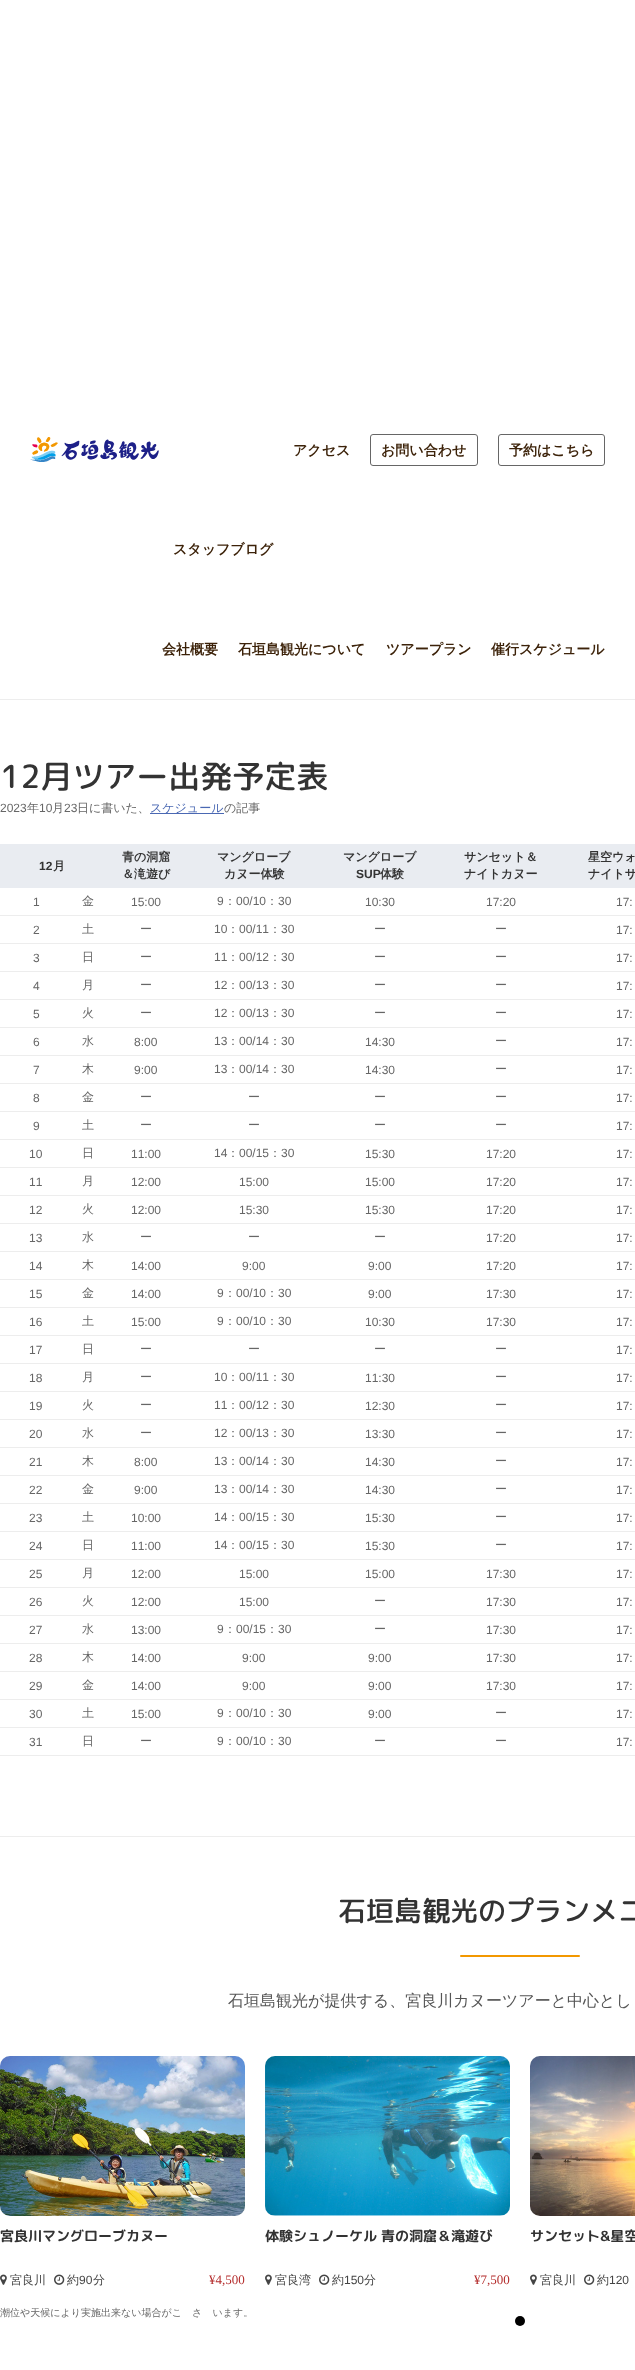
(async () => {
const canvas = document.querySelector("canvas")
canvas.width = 635
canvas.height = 2370
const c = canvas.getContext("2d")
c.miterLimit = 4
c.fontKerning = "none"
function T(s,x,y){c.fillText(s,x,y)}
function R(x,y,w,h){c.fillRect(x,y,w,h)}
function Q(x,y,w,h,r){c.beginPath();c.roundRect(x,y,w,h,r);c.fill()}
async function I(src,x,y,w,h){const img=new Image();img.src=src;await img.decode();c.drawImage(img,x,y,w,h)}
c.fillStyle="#fff"
R(0,0,635,2370)
c.fillStyle="#ededed"
R(0,699,635,1)
await I("1.png",30,437,129,25)
c.font="bold 14px WenQuanYi Zen Hei"
c.fillStyle="#3c2209"
T("アクセス",293,455)
c.beginPath()
c.roundRect(370.5,434.5,107,31,2.5)
c.strokeStyle="#666"
c.stroke()
T("お問い合わせ",381,455)
c.beginPath()
c.roundRect(498.5,434.5,106,31,2.5)
c.stroke()
T("予約はこちら",509,455)
T("スタッフブログ",173,554)
T("会社概要",162,654)
T("石垣島観光について",238,654)
T("ツアープラン",386,654)
T("催行スケジュール",491,654)
c.font="500 32px 'Rounded Mplus 1c'"
c.fillStyle="#333"
T("12月ツアー出発予定表",0,788)
c.font="12px Liberation Sans"
c.fillStyle="#666"
T("2023",0,812)
c.font="500 12px WenQuanYi Zen Hei"
T("年",27,812)
c.font="12px Liberation Sans"
T("10",39,812)
c.font="500 12px WenQuanYi Zen Hei"
T("月",52,812)
c.font="12px Liberation Sans"
T("23",64,812)
c.font="500 12px WenQuanYi Zen Hei"
T("日に書いた、",77,812)
c.fillStyle="#4a68b3"
R(150,813,74,1)
T("スケジュール",150,812)
c.fillStyle="#666"
T("の記事",224,812)
c.fillStyle="#e9ecf1"
R(0,844,635,44)
c.font="bold 12px Liberation Sans"
c.fillStyle="#333"
T("12",39,870)
c.font="bold 12px WenQuanYi Zen Hei"
T("月",53,870)
T("青の洞窟",122,861)
T("＆滝遊び",122,878)
T("マングローブ",217,861)
T("カヌー体験",224,878)
T("マングローブ",343,861)
c.font="bold 12px Liberation Sans"
T("SUP",356,878)
c.font="bold 12px WenQuanYi Zen Hei"
T("体験",380,878)
T("サンセット＆",464,861)
T("ナイトカヌー",464,878)
T("星空ウォ",588,861)
T("ナイトサ",588,878)
c.font="12px Liberation Sans"
c.fillStyle="#666"
T("1",33,906)
c.font="500 12px WenQuanYi Zen Hei"
T("金",82,905)
c.font="12px Liberation Sans"
T("15:00",131,906)
T("9",217,905)
c.font="500 12px WenQuanYi Zen Hei"
T("：",224,905)
c.font="12px Liberation Sans"
T("00/10",236,905)
c.font="500 12px WenQuanYi Zen Hei"
T("：",266,905)
c.font="12px Liberation Sans"
T("30",278,905)
T("10:30",365,906)
T("17:20",486,906)
c.fillStyle="#ededed"
R(0,915,635,1)
c.fillStyle="#666"
T("17:",616,906)
T("2",33,934)
c.font="500 12px WenQuanYi Zen Hei"
T("土",82,933)
T("ー",140,933)
c.font="12px Liberation Sans"
T("10",214,933)
c.font="500 12px WenQuanYi Zen Hei"
T("：",227,933)
c.font="12px Liberation Sans"
T("00/11",239,933)
c.font="500 12px WenQuanYi Zen Hei"
T("：",269,933)
c.font="12px Liberation Sans"
T("30",281,933)
c.font="500 12px WenQuanYi Zen Hei"
T("ー",374,933)
T("ー",495,933)
c.fillStyle="#ededed"
R(0,943,635,1)
c.font="12px Liberation Sans"
c.fillStyle="#666"
T("17:",616,934)
T("3",33,962)
c.font="500 12px WenQuanYi Zen Hei"
T("日",82,961)
T("ー",140,961)
c.font="12px Liberation Sans"
T("11",214,961)
c.font="500 12px WenQuanYi Zen Hei"
T("：",227,961)
c.font="12px Liberation Sans"
T("00/12",239,961)
c.font="500 12px WenQuanYi Zen Hei"
T("：",269,961)
c.font="12px Liberation Sans"
T("30",281,961)
c.font="500 12px WenQuanYi Zen Hei"
T("ー",374,961)
T("ー",495,961)
c.fillStyle="#ededed"
R(0,971,635,1)
c.font="12px Liberation Sans"
c.fillStyle="#666"
T("17:",616,962)
T("4",33,990)
c.font="500 12px WenQuanYi Zen Hei"
T("月",82,989)
T("ー",140,989)
c.font="12px Liberation Sans"
T("12",214,989)
c.font="500 12px WenQuanYi Zen Hei"
T("：",227,989)
c.font="12px Liberation Sans"
T("00/13",239,989)
c.font="500 12px WenQuanYi Zen Hei"
T("：",269,989)
c.font="12px Liberation Sans"
T("30",281,989)
c.font="500 12px WenQuanYi Zen Hei"
T("ー",374,989)
T("ー",495,989)
c.fillStyle="#ededed"
R(0,999,635,1)
c.font="12px Liberation Sans"
c.fillStyle="#666"
T("17:",616,990)
T("5",33,1018)
c.font="500 12px WenQuanYi Zen Hei"
T("火",82,1017)
T("ー",140,1017)
c.font="12px Liberation Sans"
T("12",214,1017)
c.font="500 12px WenQuanYi Zen Hei"
T("：",227,1017)
c.font="12px Liberation Sans"
T("00/13",239,1017)
c.font="500 12px WenQuanYi Zen Hei"
T("：",269,1017)
c.font="12px Liberation Sans"
T("30",281,1017)
c.font="500 12px WenQuanYi Zen Hei"
T("ー",374,1017)
T("ー",495,1017)
c.fillStyle="#ededed"
R(0,1027,635,1)
c.font="12px Liberation Sans"
c.fillStyle="#666"
T("17:",616,1018)
T("6",33,1046)
c.font="500 12px WenQuanYi Zen Hei"
T("水",82,1045)
c.font="12px Liberation Sans"
T("8:00",134,1046)
T("13",214,1045)
c.font="500 12px WenQuanYi Zen Hei"
T("：",227,1045)
c.font="12px Liberation Sans"
T("00/14",239,1045)
c.font="500 12px WenQuanYi Zen Hei"
T("：",269,1045)
c.font="12px Liberation Sans"
T("30",281,1045)
T("14:30",365,1046)
c.font="500 12px WenQuanYi Zen Hei"
T("ー",495,1045)
c.fillStyle="#ededed"
R(0,1055,635,1)
c.font="12px Liberation Sans"
c.fillStyle="#666"
T("17:",616,1046)
T("7",33,1074)
c.font="500 12px WenQuanYi Zen Hei"
T("木",82,1073)
c.font="12px Liberation Sans"
T("9:00",134,1074)
T("13",214,1073)
c.font="500 12px WenQuanYi Zen Hei"
T("：",227,1073)
c.font="12px Liberation Sans"
T("00/14",239,1073)
c.font="500 12px WenQuanYi Zen Hei"
T("：",269,1073)
c.font="12px Liberation Sans"
T("30",281,1073)
T("14:30",365,1074)
c.font="500 12px WenQuanYi Zen Hei"
T("ー",495,1073)
c.fillStyle="#ededed"
R(0,1083,635,1)
c.font="12px Liberation Sans"
c.fillStyle="#666"
T("17:",616,1074)
T("8",33,1102)
c.font="500 12px WenQuanYi Zen Hei"
T("金",82,1101)
T("ー",140,1101)
T("ー",248,1101)
T("ー",374,1101)
T("ー",495,1101)
c.fillStyle="#ededed"
R(0,1111,635,1)
c.font="12px Liberation Sans"
c.fillStyle="#666"
T("17:",616,1102)
T("9",33,1130)
c.font="500 12px WenQuanYi Zen Hei"
T("土",82,1129)
T("ー",140,1129)
T("ー",248,1129)
T("ー",374,1129)
T("ー",495,1129)
c.fillStyle="#ededed"
R(0,1139,635,1)
c.font="12px Liberation Sans"
c.fillStyle="#666"
T("17:",616,1130)
T("10",29,1158)
c.font="500 12px WenQuanYi Zen Hei"
T("日",82,1157)
c.font="12px Liberation Sans"
T("11:00",131,1158)
T("14",214,1157)
c.font="500 12px WenQuanYi Zen Hei"
T("：",227,1157)
c.font="12px Liberation Sans"
T("00/15",239,1157)
c.font="500 12px WenQuanYi Zen Hei"
T("：",269,1157)
c.font="12px Liberation Sans"
T("30",281,1157)
T("15:30",365,1158)
T("17:20",486,1158)
c.fillStyle="#ededed"
R(0,1167,635,1)
c.fillStyle="#666"
T("17:",616,1158)
T("11",29,1186)
c.font="500 12px WenQuanYi Zen Hei"
T("月",82,1185)
c.font="12px Liberation Sans"
T("12:00",131,1186)
T("15:00",239,1186)
T("15:00",365,1186)
T("17:20",486,1186)
c.fillStyle="#ededed"
R(0,1195,635,1)
c.fillStyle="#666"
T("17:",616,1186)
T("12",29,1214)
c.font="500 12px WenQuanYi Zen Hei"
T("火",82,1213)
c.font="12px Liberation Sans"
T("12:00",131,1214)
T("15:30",239,1214)
T("15:30",365,1214)
T("17:20",486,1214)
c.fillStyle="#ededed"
R(0,1223,635,1)
c.fillStyle="#666"
T("17:",616,1214)
T("13",29,1242)
c.font="500 12px WenQuanYi Zen Hei"
T("水",82,1241)
T("ー",140,1241)
T("ー",248,1241)
T("ー",374,1241)
c.font="12px Liberation Sans"
T("17:20",486,1242)
c.fillStyle="#ededed"
R(0,1251,635,1)
c.fillStyle="#666"
T("17:",616,1242)
T("14",29,1270)
c.font="500 12px WenQuanYi Zen Hei"
T("木",82,1269)
c.font="12px Liberation Sans"
T("14:00",131,1270)
T("9:00",242,1270)
T("9:00",368,1270)
T("17:20",486,1270)
c.fillStyle="#ededed"
R(0,1279,635,1)
c.fillStyle="#666"
T("17:",616,1270)
T("15",29,1298)
c.font="500 12px WenQuanYi Zen Hei"
T("金",82,1297)
c.font="12px Liberation Sans"
T("14:00",131,1298)
T("9",217,1297)
c.font="500 12px WenQuanYi Zen Hei"
T("：",224,1297)
c.font="12px Liberation Sans"
T("00/10",236,1297)
c.font="500 12px WenQuanYi Zen Hei"
T("：",266,1297)
c.font="12px Liberation Sans"
T("30",278,1297)
T("9:00",368,1298)
T("17:30",486,1298)
c.fillStyle="#ededed"
R(0,1307,635,1)
c.fillStyle="#666"
T("17:",616,1298)
T("16",29,1326)
c.font="500 12px WenQuanYi Zen Hei"
T("土",82,1325)
c.font="12px Liberation Sans"
T("15:00",131,1326)
T("9",217,1325)
c.font="500 12px WenQuanYi Zen Hei"
T("：",224,1325)
c.font="12px Liberation Sans"
T("00/10",236,1325)
c.font="500 12px WenQuanYi Zen Hei"
T("：",266,1325)
c.font="12px Liberation Sans"
T("30",278,1325)
T("10:30",365,1326)
T("17:30",486,1326)
c.fillStyle="#ededed"
R(0,1335,635,1)
c.fillStyle="#666"
T("17:",616,1326)
T("17",29,1354)
c.font="500 12px WenQuanYi Zen Hei"
T("日",82,1353)
T("ー",140,1353)
T("ー",248,1353)
T("ー",374,1353)
T("ー",495,1353)
c.fillStyle="#ededed"
R(0,1363,635,1)
c.font="12px Liberation Sans"
c.fillStyle="#666"
T("17:",616,1354)
T("18",29,1382)
c.font="500 12px WenQuanYi Zen Hei"
T("月",82,1381)
T("ー",140,1381)
c.font="12px Liberation Sans"
T("10",214,1381)
c.font="500 12px WenQuanYi Zen Hei"
T("：",227,1381)
c.font="12px Liberation Sans"
T("00/11",239,1381)
c.font="500 12px WenQuanYi Zen Hei"
T("：",269,1381)
c.font="12px Liberation Sans"
T("30",281,1381)
T("11:30",365,1382)
c.font="500 12px WenQuanYi Zen Hei"
T("ー",495,1381)
c.fillStyle="#ededed"
R(0,1391,635,1)
c.font="12px Liberation Sans"
c.fillStyle="#666"
T("17:",616,1382)
T("19",29,1410)
c.font="500 12px WenQuanYi Zen Hei"
T("火",82,1409)
T("ー",140,1409)
c.font="12px Liberation Sans"
T("11",214,1409)
c.font="500 12px WenQuanYi Zen Hei"
T("：",227,1409)
c.font="12px Liberation Sans"
T("00/12",239,1409)
c.font="500 12px WenQuanYi Zen Hei"
T("：",269,1409)
c.font="12px Liberation Sans"
T("30",281,1409)
T("12:30",365,1410)
c.font="500 12px WenQuanYi Zen Hei"
T("ー",495,1409)
c.fillStyle="#ededed"
R(0,1419,635,1)
c.font="12px Liberation Sans"
c.fillStyle="#666"
T("17:",616,1410)
T("20",29,1438)
c.font="500 12px WenQuanYi Zen Hei"
T("水",82,1437)
T("ー",140,1437)
c.font="12px Liberation Sans"
T("12",214,1437)
c.font="500 12px WenQuanYi Zen Hei"
T("：",227,1437)
c.font="12px Liberation Sans"
T("00/13",239,1437)
c.font="500 12px WenQuanYi Zen Hei"
T("：",269,1437)
c.font="12px Liberation Sans"
T("30",281,1437)
T("13:30",365,1438)
c.font="500 12px WenQuanYi Zen Hei"
T("ー",495,1437)
c.fillStyle="#ededed"
R(0,1447,635,1)
c.font="12px Liberation Sans"
c.fillStyle="#666"
T("17:",616,1438)
T("21",29,1466)
c.font="500 12px WenQuanYi Zen Hei"
T("木",82,1465)
c.font="12px Liberation Sans"
T("8:00",134,1466)
T("13",214,1465)
c.font="500 12px WenQuanYi Zen Hei"
T("：",227,1465)
c.font="12px Liberation Sans"
T("00/14",239,1465)
c.font="500 12px WenQuanYi Zen Hei"
T("：",269,1465)
c.font="12px Liberation Sans"
T("30",281,1465)
T("14:30",365,1466)
c.font="500 12px WenQuanYi Zen Hei"
T("ー",495,1465)
c.fillStyle="#ededed"
R(0,1475,635,1)
c.font="12px Liberation Sans"
c.fillStyle="#666"
T("17:",616,1466)
T("22",29,1494)
c.font="500 12px WenQuanYi Zen Hei"
T("金",82,1493)
c.font="12px Liberation Sans"
T("9:00",134,1494)
T("13",214,1493)
c.font="500 12px WenQuanYi Zen Hei"
T("：",227,1493)
c.font="12px Liberation Sans"
T("00/14",239,1493)
c.font="500 12px WenQuanYi Zen Hei"
T("：",269,1493)
c.font="12px Liberation Sans"
T("30",281,1493)
T("14:30",365,1494)
c.font="500 12px WenQuanYi Zen Hei"
T("ー",495,1493)
c.fillStyle="#ededed"
R(0,1503,635,1)
c.font="12px Liberation Sans"
c.fillStyle="#666"
T("17:",616,1494)
T("23",29,1522)
c.font="500 12px WenQuanYi Zen Hei"
T("土",82,1521)
c.font="12px Liberation Sans"
T("10:00",131,1522)
T("14",214,1521)
c.font="500 12px WenQuanYi Zen Hei"
T("：",227,1521)
c.font="12px Liberation Sans"
T("00/15",239,1521)
c.font="500 12px WenQuanYi Zen Hei"
T("：",269,1521)
c.font="12px Liberation Sans"
T("30",281,1521)
T("15:30",365,1522)
c.font="500 12px WenQuanYi Zen Hei"
T("ー",495,1521)
c.fillStyle="#ededed"
R(0,1531,635,1)
c.font="12px Liberation Sans"
c.fillStyle="#666"
T("17:",616,1522)
T("24",29,1550)
c.font="500 12px WenQuanYi Zen Hei"
T("日",82,1549)
c.font="12px Liberation Sans"
T("11:00",131,1550)
T("14",214,1549)
c.font="500 12px WenQuanYi Zen Hei"
T("：",227,1549)
c.font="12px Liberation Sans"
T("00/15",239,1549)
c.font="500 12px WenQuanYi Zen Hei"
T("：",269,1549)
c.font="12px Liberation Sans"
T("30",281,1549)
T("15:30",365,1550)
c.font="500 12px WenQuanYi Zen Hei"
T("ー",495,1549)
c.fillStyle="#ededed"
R(0,1559,635,1)
c.font="12px Liberation Sans"
c.fillStyle="#666"
T("17:",616,1550)
T("25",29,1578)
c.font="500 12px WenQuanYi Zen Hei"
T("月",82,1577)
c.font="12px Liberation Sans"
T("12:00",131,1578)
T("15:00",239,1578)
T("15:00",365,1578)
T("17:30",486,1578)
c.fillStyle="#ededed"
R(0,1587,635,1)
c.fillStyle="#666"
T("17:",616,1578)
T("26",29,1606)
c.font="500 12px WenQuanYi Zen Hei"
T("火",82,1605)
c.font="12px Liberation Sans"
T("12:00",131,1606)
T("15:00",239,1606)
c.font="500 12px WenQuanYi Zen Hei"
T("ー",374,1605)
c.font="12px Liberation Sans"
T("17:30",486,1606)
c.fillStyle="#ededed"
R(0,1615,635,1)
c.fillStyle="#666"
T("17:",616,1606)
T("27",29,1634)
c.font="500 12px WenQuanYi Zen Hei"
T("水",82,1633)
c.font="12px Liberation Sans"
T("13:00",131,1634)
T("9",217,1633)
c.font="500 12px WenQuanYi Zen Hei"
T("：",224,1633)
c.font="12px Liberation Sans"
T("00/15",236,1633)
c.font="500 12px WenQuanYi Zen Hei"
T("：",266,1633)
c.font="12px Liberation Sans"
T("30",278,1633)
c.font="500 12px WenQuanYi Zen Hei"
T("ー",374,1633)
c.font="12px Liberation Sans"
T("17:30",486,1634)
c.fillStyle="#ededed"
R(0,1643,635,1)
c.fillStyle="#666"
T("17:",616,1634)
T("28",29,1662)
c.font="500 12px WenQuanYi Zen Hei"
T("木",82,1661)
c.font="12px Liberation Sans"
T("14:00",131,1662)
T("9:00",242,1662)
T("9:00",368,1662)
T("17:30",486,1662)
c.fillStyle="#ededed"
R(0,1671,635,1)
c.fillStyle="#666"
T("17:",616,1662)
T("29",29,1690)
c.font="500 12px WenQuanYi Zen Hei"
T("金",82,1689)
c.font="12px Liberation Sans"
T("14:00",131,1690)
T("9:00",242,1690)
T("9:00",368,1690)
T("17:30",486,1690)
c.fillStyle="#ededed"
R(0,1699,635,1)
c.fillStyle="#666"
T("17:",616,1690)
T("30",29,1718)
c.font="500 12px WenQuanYi Zen Hei"
T("土",82,1717)
c.font="12px Liberation Sans"
T("15:00",131,1718)
T("9",217,1717)
c.font="500 12px WenQuanYi Zen Hei"
T("：",224,1717)
c.font="12px Liberation Sans"
T("00/10",236,1717)
c.font="500 12px WenQuanYi Zen Hei"
T("：",266,1717)
c.font="12px Liberation Sans"
T("30",278,1717)
T("9:00",368,1718)
c.font="500 12px WenQuanYi Zen Hei"
T("ー",495,1717)
c.fillStyle="#ededed"
R(0,1727,635,1)
c.font="12px Liberation Sans"
c.fillStyle="#666"
T("17:",616,1718)
T("31",29,1746)
c.font="500 12px WenQuanYi Zen Hei"
T("日",82,1745)
T("ー",140,1745)
c.font="12px Liberation Sans"
T("9",217,1745)
c.font="500 12px WenQuanYi Zen Hei"
T("：",224,1745)
c.font="12px Liberation Sans"
T("00/10",236,1745)
c.font="500 12px WenQuanYi Zen Hei"
T("：",266,1745)
c.font="12px Liberation Sans"
T("30",278,1745)
c.font="500 12px WenQuanYi Zen Hei"
T("ー",374,1745)
T("ー",495,1745)
c.fillStyle="#ededed"
R(0,1755,635,1)
c.font="12px Liberation Sans"
c.fillStyle="#666"
T("17:",616,1746)
c.fillStyle="#ededed"
R(0,1836,635,1)
c.font="500 28px 'Rounded Mplus 1c'"
c.fillStyle="#333"
T("石垣島観光のプランメニ",338,1921)
c.fillStyle="#f39800"
Q(460,1955,120,2,1)
c.font="500 16px WenQuanYi Zen Hei"
c.fillStyle="#555"
T("石垣島観光が提供する、宮良川カヌーツアーと中心とし",228,2006)
c.fillStyle="#efefef"
Q(0,2056,245,160,10)
await I("2.png",0,2056,245,160)
c.font="bold 14px 'Rounded Mplus 1c Bold'"
c.fillStyle="#333"
T("宮良川マングローブカヌー",0,2241)
await I("3.png",0,2274,7,11)
c.font="500 12px WenQuanYi Zen Hei"
c.fillStyle="#444"
T("宮良川",10,2284)
await I("4.png",54,2274,11,11)
T("約",67,2284)
c.font="12px Liberation Sans"
T("90",79,2284)
c.font="500 12px WenQuanYi Zen Hei"
T("分",93,2284)
c.font="13px Liberation Serif"
c.fillStyle="#b42d2d"
T("¥4,500",209,2284)
c.fillStyle="#efefef"
Q(265,2056,245,160,10)
await I("5.png",265,2056,245,160)
c.font="bold 14px 'Rounded Mplus 1c Bold'"
c.fillStyle="#333"
T("体験シュノーケル 青の洞窟＆滝遊び",265,2241)
await I("3.png",265,2274,7,11)
c.font="500 12px WenQuanYi Zen Hei"
c.fillStyle="#444"
T("宮良湾",275,2284)
await I("4.png",319,2274,11,11)
T("約",332,2284)
c.font="12px Liberation Sans"
T("150",344,2284)
c.font="500 12px WenQuanYi Zen Hei"
T("分",364,2284)
c.font="13px Liberation Serif"
c.fillStyle="#b42d2d"
T("¥7,500",474,2284)
c.fillStyle="#efefef"
Q(530,2056,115,160,10)
await I("6.png",530,2056,105,160)
c.font="bold 14px 'Rounded Mplus 1c Bold'"
c.fillStyle="#333"
T("サンセット&星空",530,2241)
await I("3.png",530,2274,7,11)
c.font="500 12px WenQuanYi Zen Hei"
c.fillStyle="#444"
T("宮良川",540,2284)
await I("4.png",584,2274,11,11)
T("約",597,2284)
c.font="12px Liberation Sans"
T("120",609,2284)
c.fillStyle="#000"
c.beginPath()
c.arc(520,2321,5,0,7)
c.fill()
c.font="500 10px WenQuanYi Zen Hei"
c.fillStyle="#666"
T("潮位や天候により実施出来ない場合がございます。",0,2316)
})()
